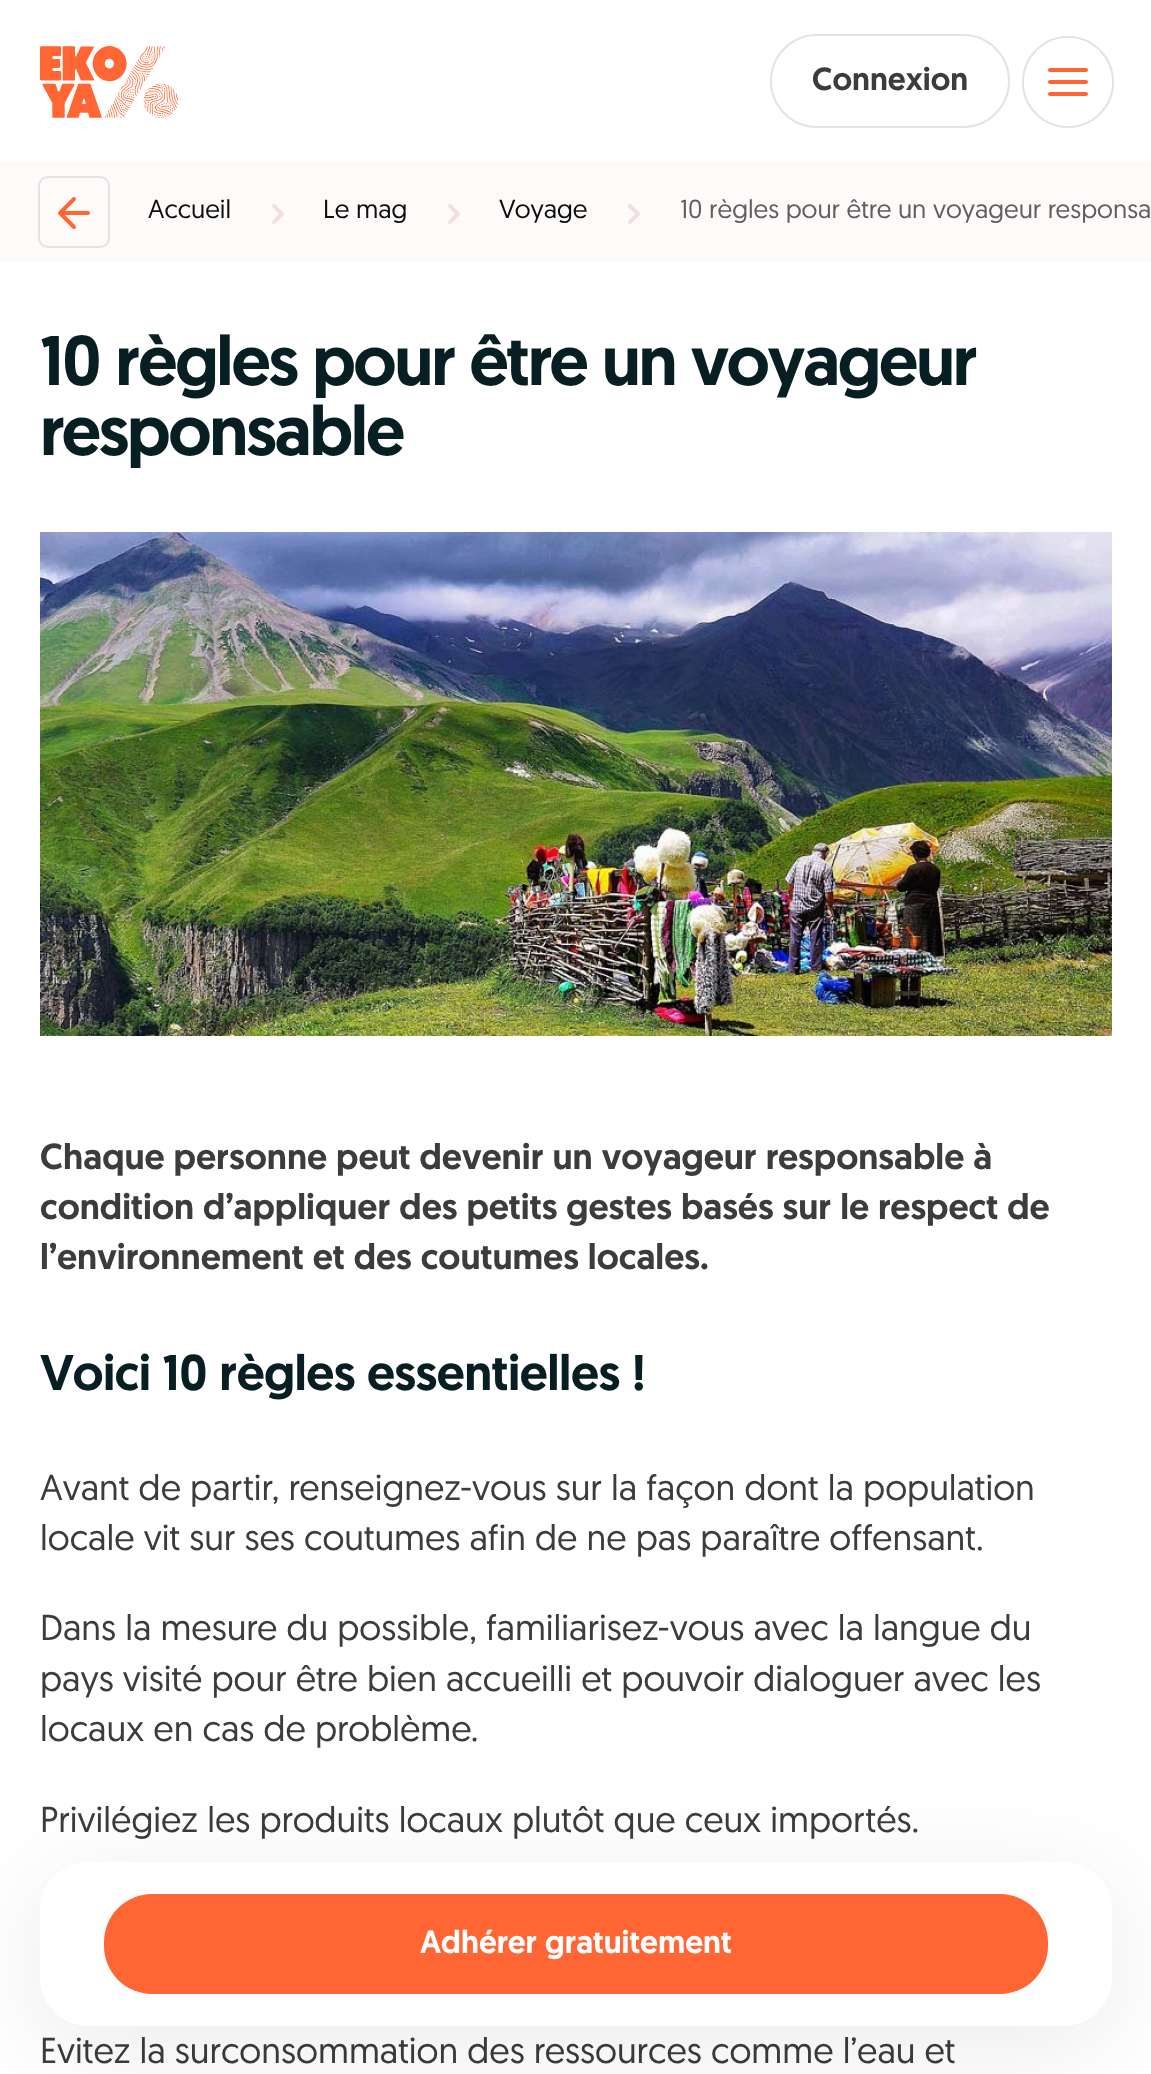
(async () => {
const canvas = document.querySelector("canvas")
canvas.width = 1151
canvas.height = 2074
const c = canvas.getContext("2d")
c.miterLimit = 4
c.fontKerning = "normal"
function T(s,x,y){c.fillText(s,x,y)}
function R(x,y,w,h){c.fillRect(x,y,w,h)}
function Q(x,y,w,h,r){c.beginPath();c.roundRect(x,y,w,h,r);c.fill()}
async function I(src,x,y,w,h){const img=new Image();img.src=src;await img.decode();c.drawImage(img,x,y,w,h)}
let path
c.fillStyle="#fff"
R(0,0,1151,2074)
await I("1.png",40,46,138,72)
c.beginPath()
c.roundRect(771,35,238,92,46)
c.strokeStyle="#e3e3e3"
c.lineWidth=2
c.stroke()
c.font="500 32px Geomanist"
c.fillStyle="#3c3c3c"
T("Connexion",812,90)
c.beginPath()
c.arc(1068,82,45,0,7)
c.stroke()
c.fillStyle="#fff"
c.beginPath()
c.arc(1068,82,44,0,7)
c.fill()
await I("2.png",1048,68,40,28)
c.fillStyle="#fffafa"
R(0,162,1151,100)
c.beginPath()
c.roundRect(39,177,70,70,9)
c.stroke()
path = new Path2D("M88 213h-28m14 14l-14-14l14-14")
c.strokeStyle="#f63"
c.lineWidth=4
c.lineCap="round"
c.lineJoin="round"
c.stroke(path)
c.font="26px Geomanist"
c.fillStyle="#0a100d"
T("Accueil",148,218)
await I("3.png",272,204,12,20)
T("Le mag",323,218)
await I("3.png",448,204,12,20)
T("Voyage",499,218)
await I("3.png",628,204,12,20)
c.fillStyle="#5f5f5f"
T("10 règles pour être un voyageur responsa",680,218)
c.letterSpacing="-2.1px"
c.font="500 70px Geomanist"
c.fillStyle="#071e22"
T("10 règles pour être un voyageur",40,385)
T("responsable",40,455)
await I("4.png",40,532,1072,504)
c.letterSpacing="0px"
c.font="500 36px Geomanist"
c.fillStyle="#3c3c3c"
T("Chaque personne peut devenir un voyageur responsable à",40,1169)
T("condition d’appliquer des petits gestes basés sur le respect de",40,1219)
T("l’environnement et des coutumes locales.",40,1269)
c.letterSpacing="-0.5px"
c.font="500 50px Geomanist"
c.fillStyle="#071e22"
T("Voici 10 règles essentielles !",40,1390)
c.letterSpacing="0px"
c.font="36px Geomanist"
c.fillStyle="#3c3c3c"
T("Avant de partir, renseignez-vous sur la façon dont la population",40,1500)
T("locale vit sur ses coutumes afin de ne pas paraître offensant.",40,1550)
T("Dans la mesure du possible, familiarisez-vous avec la langue du",40,1640)
T("pays visité pour être bien accueilli et pouvoir dialoguer avec les",40,1691)
T("locaux en cas de problème.",40,1741)
T("Privilégiez les produits locaux plutôt que ceux importés.",40,1832)
T("Evitez la surconsommation des ressources comme l’eau et",40,2063)
c.fillStyle="#00000014"
c.filter="blur(50px)"
c.beginPath()
c.roundRect(40,1882,1072,164,48)
c.fill()
c.filter="none"
c.fillStyle="#fff"
Q(40,1862,1072,164,48)
c.fillStyle="#f63"
Q(104,1894,944,100,48)
c.font="500 32px Geomanist"
c.fillStyle="#fff"
T("Adhérer gratuitement",420,1953)
})()
